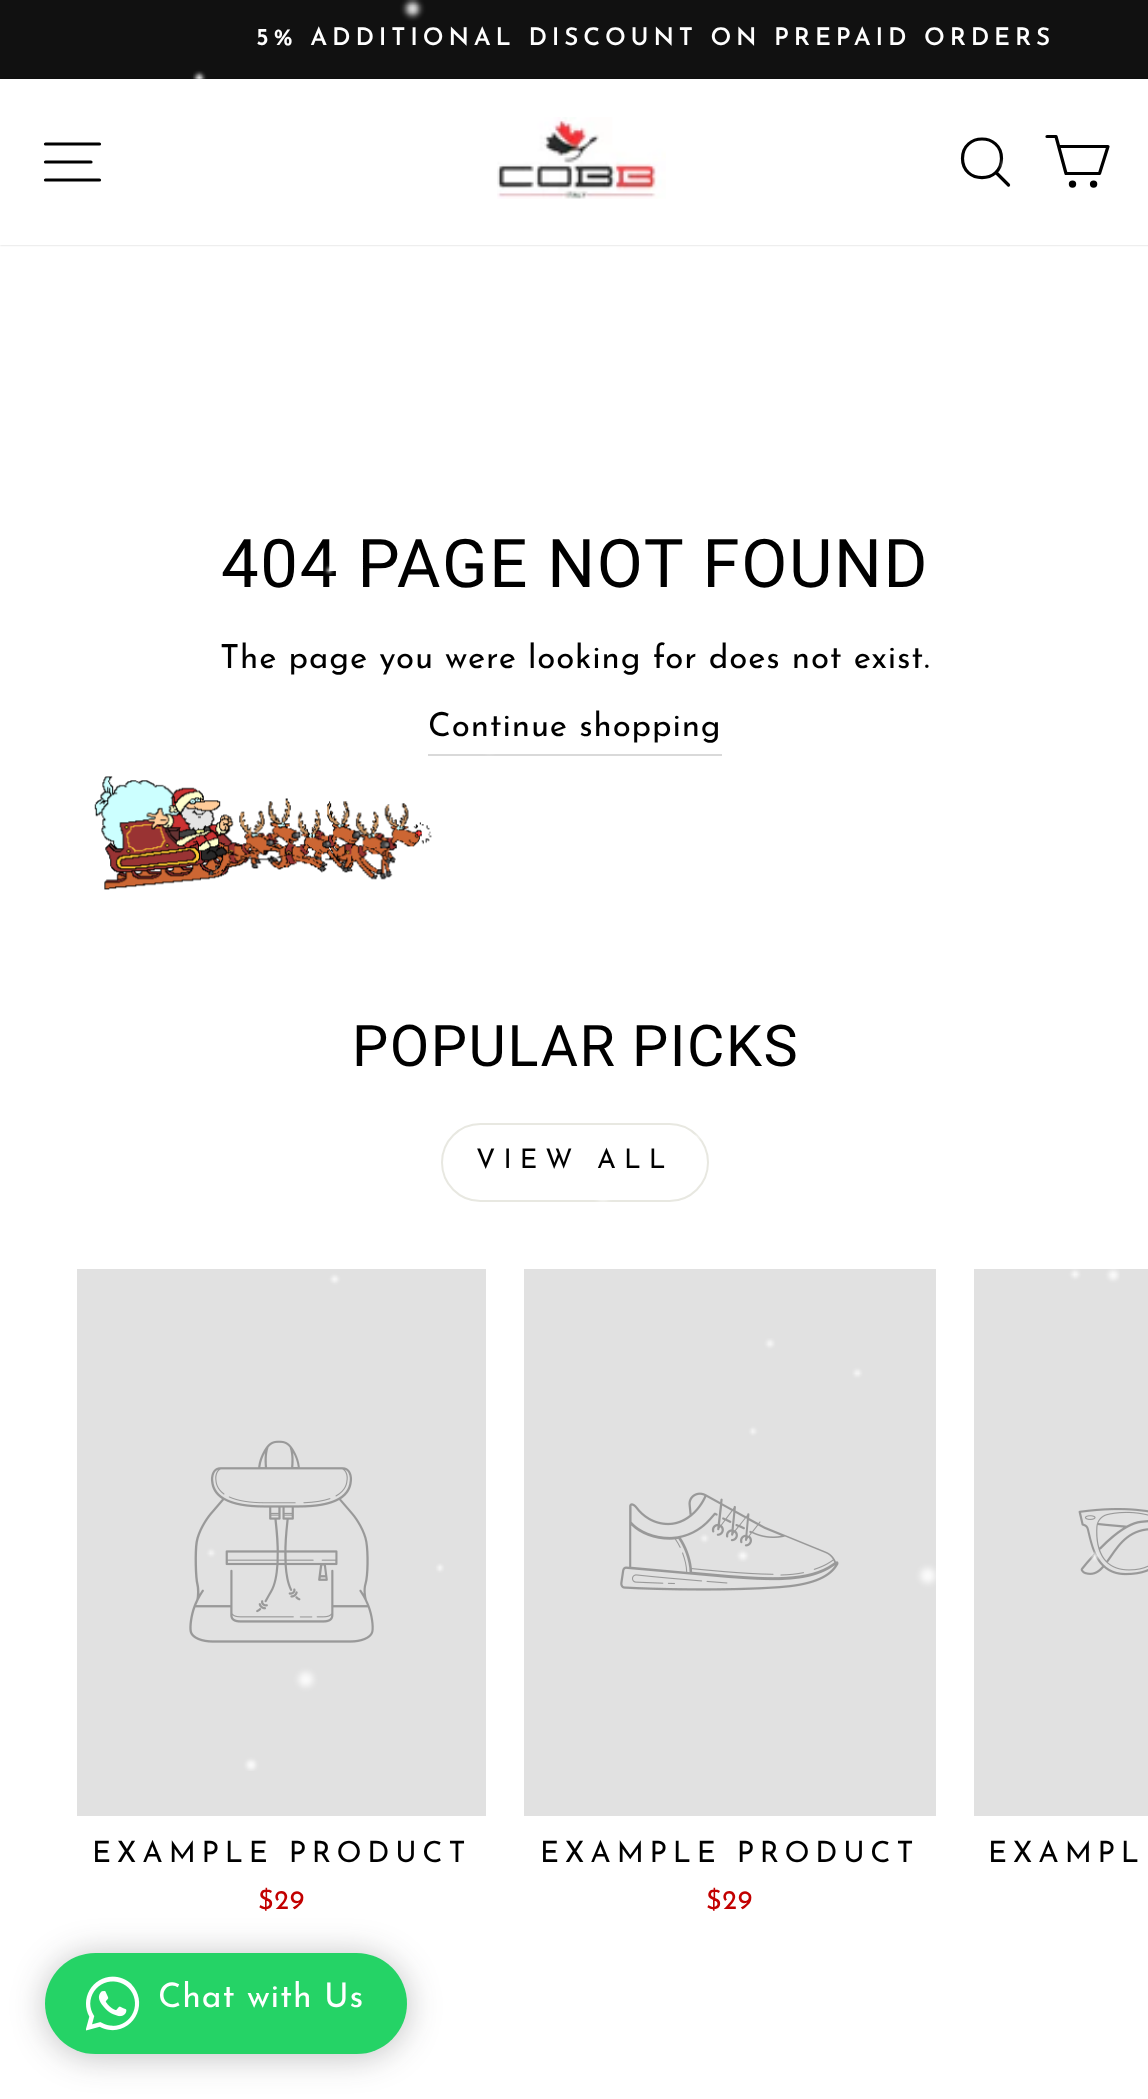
(async () => {
const canvas = document.querySelector("canvas")
canvas.width = 1148
canvas.height = 2099
const c = canvas.getContext("2d")
c.miterLimit = 4
c.fontKerning = "normal"
function T(s,x,y){c.fillText(s,x,y)}
function R(x,y,w,h){c.fillRect(x,y,w,h)}
function Q(x,y,w,h,r){c.beginPath();c.roundRect(x,y,w,h,r);c.fill()}
async function I(src,x,y,w,h){const img=new Image();img.src=src;await img.decode();c.drawImage(img,x,y,w,h)}
let path
c.fillStyle="#fff"
R(0,0,1148,2099)
await I("2.png",94,776,338,114)
c.fillStyle="#111"
R(0,0,1148,79)
c.letterSpacing="4.85px"
c.font="600 24.3px Josefin Sans"
c.fillStyle="#fff"
T("5% ADDITIONAL DISCOUNT ON PREPAID ORDERS",256,45)
c.save()
path = new Path2D("M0 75h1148v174h-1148zm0 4h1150v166h-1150z")
c.clip(path,"evenodd")
c.fillStyle="#00000033"
c.filter="blur(1px)"
c.beginPath()
c.rect(0,79,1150,166)
c.fill()
c.filter="none"
c.restore()
await I("3.png",497,117,169,82)
path = new Path2D("M1001.5 158.5c0 25.5-39 25.5-39 0c0-26 39-26 39 0zm7 26.5l-12.5-12.5")
c.strokeStyle="#000"
c.lineWidth=3.2
c.lineCap="round"
c.lineJoin="round"
c.stroke(path)
path = new Path2D("M1059 146.5h49l-8.5 27h-33.5l-10-37h-9")
c.stroke(path)
c.fillStyle="#000"
c.beginPath()
c.arc(1072.5,184.1,2.1,0,7)
c.fill()
c.stroke()
c.beginPath()
c.arc(1093.6,184.1,2.1,0,7)
c.fill()
c.stroke()
c.letterSpacing="1.7px"
c.font="67px Roboto"
T("404 PAGE NOT FOUND",221,587)
c.letterSpacing="0.85px"
c.font="33.1px Josefin Sans"
T("The page you were looking for does not exist.",220,668)
c.fillStyle="#d9d9d9"
R(428,754,294,2)
c.fillStyle="#000"
T("Continue shopping",428,736)
c.letterSpacing="1.5px"
c.font="57.5px Roboto"
T("POPULAR PICKS",352,1066)
c.beginPath()
c.roundRect(442,1124,266,77,38.5)
c.strokeStyle="#e8e8e1"
c.lineWidth=2
c.lineJoin="miter"
c.stroke()
c.letterSpacing="8px"
c.font="27px Josefin Sans"
T("VIEW ALL",476,1168)
c.fillStyle="#e1e1e1"
R(77,1269,409,547)
await I("4.png",189,1440,185,203)
R(524,1269,412,547)
await I("5.png",620,1492,219,99)
R(974,1269,174,547)
await I("6.png",1078,1508,70,68)
await I("1.png",191,0,929,1771)
path = new Path2D("M45.5 144h54m-54 18h45.5m-45.5 18h54")
c.strokeStyle="#000"
c.lineWidth=3.2
c.lineJoin="round"
c.stroke(path)
c.letterSpacing="5.8px"
c.font="29.25px Josefin Sans"
c.fillStyle="#000"
T("EXAMPLE PRODUCT",92,1862)
c.letterSpacing="0.85px"
c.font="27px Josefin Sans"
c.fillStyle="#c20000"
T("$29",258,1909)
c.letterSpacing="5.8px"
c.font="29.25px Josefin Sans"
c.fillStyle="#000"
T("EXAMPLE PRODUCT",540,1862)
c.letterSpacing="0.85px"
c.font="27px Josefin Sans"
c.fillStyle="#c20000"
T("$29",706,1909)
c.letterSpacing="5.8px"
c.font="29.25px Josefin Sans"
c.fillStyle="#000"
T("EXAMPL",988,1862)
c.fillStyle="#20212447"
c.filter="blur(17px)"
c.beginPath()
c.roundRect(45,1955,362,102,51)
c.fill()
c.filter="none"
c.fillStyle="#25d366"
Q(45,1953,362,101,50.5)
await I("7.png",86,1976,54,55)
c.letterSpacing="0.85px"
c.font="33.75px Josefin Sans"
c.fillStyle="#fff"
T("Chat with Us",158,2007)
})()
